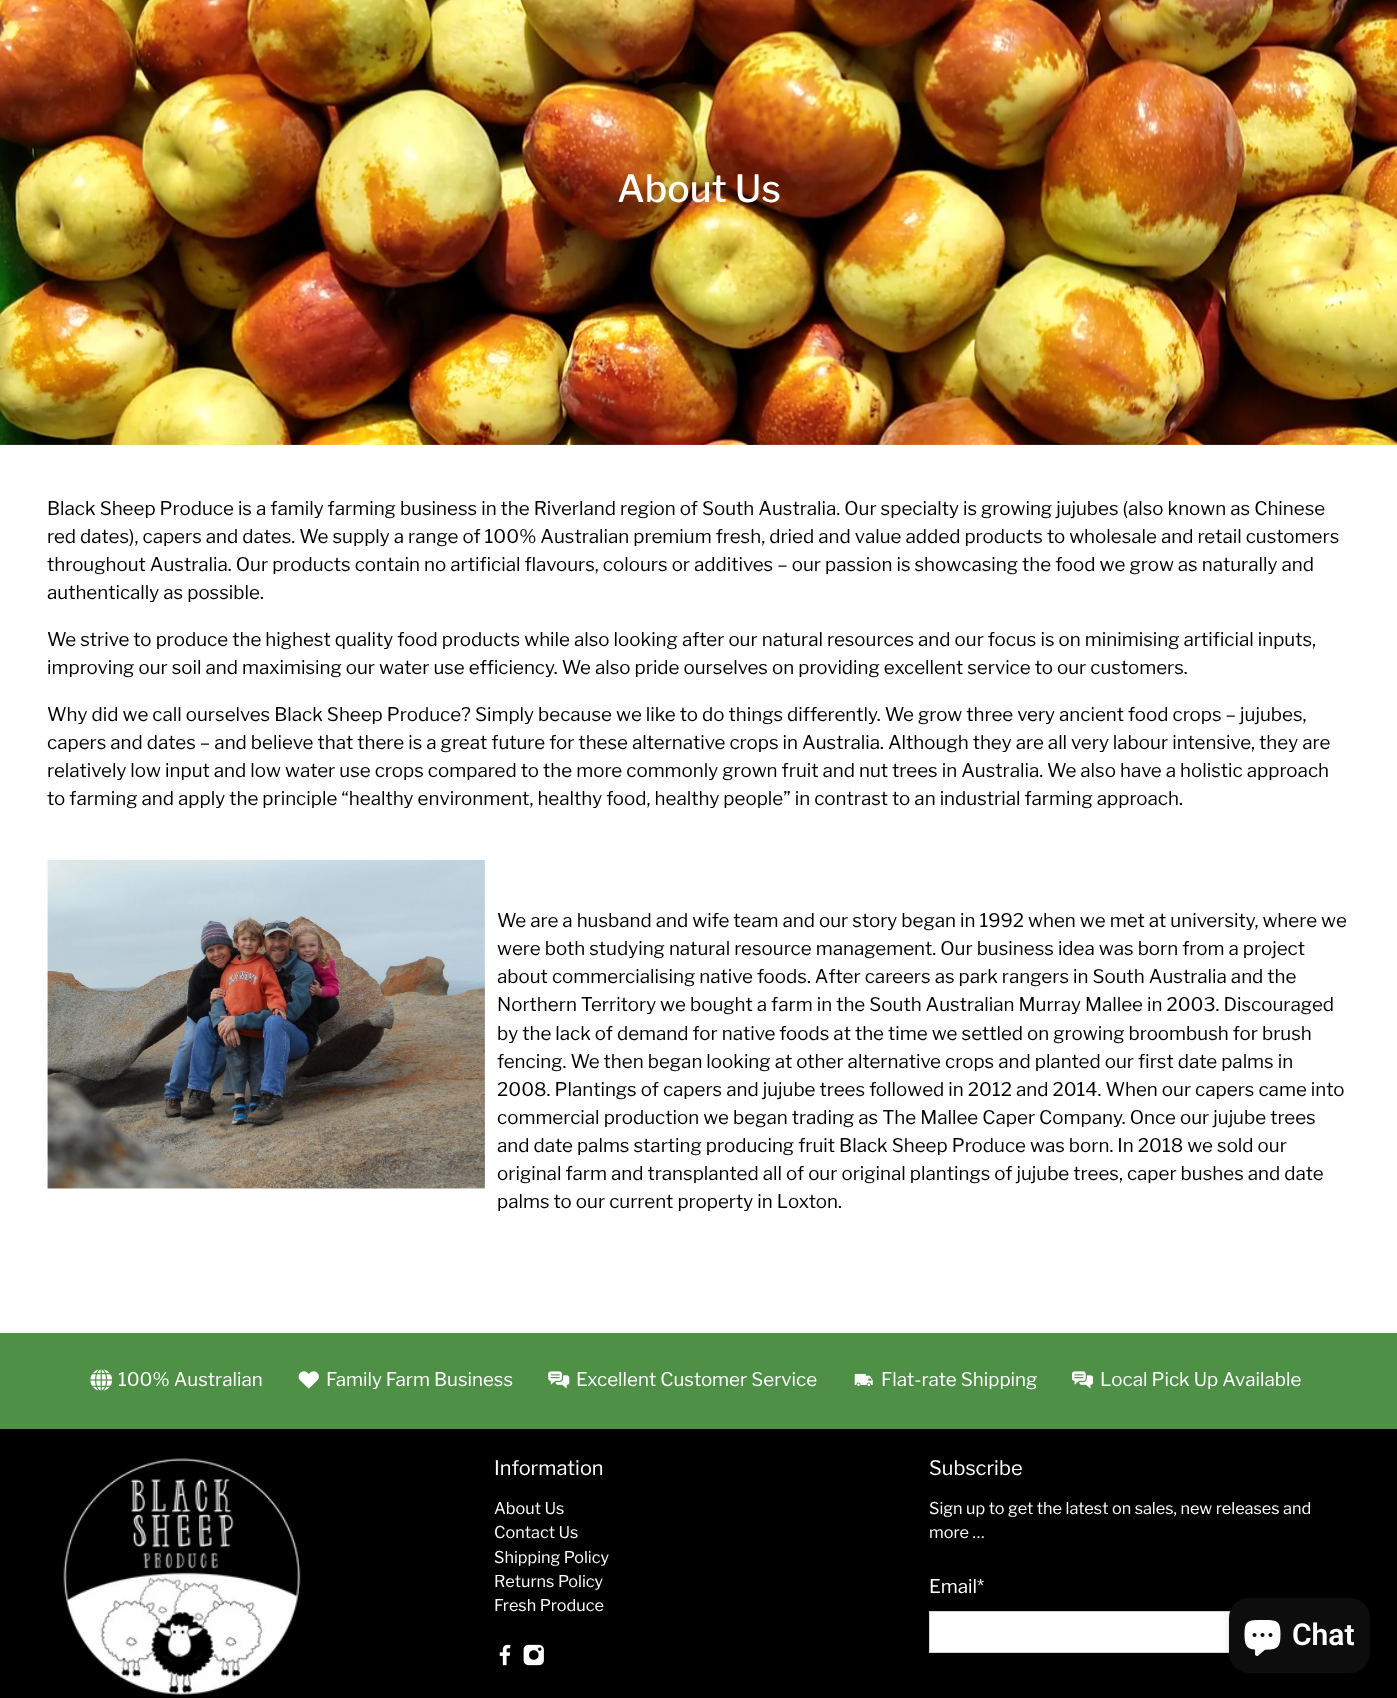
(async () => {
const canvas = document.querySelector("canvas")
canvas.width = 1397
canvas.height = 1698
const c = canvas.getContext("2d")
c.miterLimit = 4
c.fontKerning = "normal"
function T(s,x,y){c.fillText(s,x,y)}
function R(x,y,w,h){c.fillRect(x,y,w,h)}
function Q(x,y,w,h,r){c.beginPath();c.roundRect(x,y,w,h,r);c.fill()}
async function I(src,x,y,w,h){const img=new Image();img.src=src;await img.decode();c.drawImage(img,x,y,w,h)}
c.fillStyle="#fff"
R(0,0,1397,1698)
await I("1.png",0,0,1397,445)
c.font="500 37.5px Libre Franklin"
T("About Us",617,202)
c.font="18.75px Libre Franklin"
c.fillStyle="#000"
T("Black Sheep Produce is a family farming business in the Riverland region of South Australia. Our specialty is growing jujubes (also known as Chinese",47,515)
T("red dates), capers and dates. We supply a range of 100% Australian premium fresh, dried and value added products to wholesale and retail customers",47,543)
T("throughout Australia. Our products contain no artificial flavours, colours or additives – our passion is showcasing the food we grow as naturally and",47,571)
T("authentically as possible.",47,599)
T("We strive to produce the highest quality food products while also looking after our natural resources and our focus is on minimising artificial inputs,",47,646)
T("improving our soil and maximising our water use efficiency. We also pride ourselves on providing excellent service to our customers.",47,674)
T("Why did we call ourselves Black Sheep Produce? Simply because we like to do things differently. We grow three very ancient food crops – jujubes,",47,721)
T("capers and dates – and believe that there is a great future for these alternative crops in Australia. Although they are all very labour intensive, they are",47,749)
T("relatively low input and low water use crops compared to the more commonly grown fruit and nut trees in Australia. We also have a holistic approach",47,777)
T("to farming and apply the principle “healthy environment, healthy food, healthy people” in contrast to an industrial farming approach.",47,805)
await I("2.png",47,860,438,329)
T("We are a husband and wife team and our story began in 1992 when we met at university, where we",497,927)
T("were both studying natural resource management. Our business idea was born from a project",497,955)
T("about commercialising native foods. After careers as park rangers in South Australia and the",497,983)
T("Northern Territory we bought a farm in the South Australian Murray Mallee in 2003. Discouraged",497,1011)
T("by the lack of demand for native foods at the time we settled on growing broombush for brush",497,1040)
T("fencing. We then began looking at other alternative crops and planted our first date palms in",497,1068)
T("2008. Plantings of capers and jujube trees followed in 2012 and 2014. When our capers came into",497,1096)
T("commercial production we began trading as The Mallee Caper Company. Once our jujube trees",497,1124)
T("and date palms starting producing fruit Black Sheep Produce was born. In 2018 we sold our",497,1152)
T("original farm and transplanted all of our original plantings of jujube trees, caper bushes and date",497,1180)
T("palms to our current property in Loxton.",497,1208)
c.fillStyle="#4d9046"
R(0,1333,1397,96)
await I("3.png",90,1369,23,22)
c.fillStyle="#fff"
T("100% Australian",118,1386)
await I("4.png",298,1371,21,18)
T("Family Farm Business",326,1386)
await I("5.png",548,1371,22,18)
T("Excellent Customer Service",576,1386)
await I("6.png",854,1373,19,13)
T("Flat-rate Shipping",881,1386)
await I("7.png",1072,1371,22,18)
T("Local Pick Up Available",1100,1386)
c.fillStyle="#000"
R(0,1429,1397,269)
await I("8.png",63,1458,238,238)
c.font="20px Libre Franklin"
c.fillStyle="#fff"
T("Information",494,1475)
c.font="16.25px Libre Franklin"
T("About Us",494,1514)
T("Contact Us",494,1538)
T("Shipping Policy",494,1563)
T("Returns Policy",494,1587)
T("Fresh Produce",494,1611)
await I("9.png",499,1644,12,22)
await I("10.png",523,1644,21,22)
c.font="20px Libre Franklin"
T("Subscribe",929,1475)
c.font="16.25px Libre Franklin"
T("Sign up to get the latest on sales, new releases and",929,1514)
T("more …",929,1538)
c.font="18.75px Libre Franklin"
T("Email*",929,1593)
R(930,1612,300,40)
c.strokeStyle="#d3d3d3"
c.strokeRect(929.5,1611.5,394,41)
c.fillStyle="#00000026"
c.filter="blur(3px)"
c.beginPath()
c.roundRect(1229,1598,141,75,20)
c.fill()
c.filter="none"
c.fillStyle="#0e0d0d"
Q(1229,1598,141,75,20)
await I("11.png",1244,1620,37,36)
c.font="600 30px Roboto"
c.fillStyle="#fff"
T("Chat",1292,1645)
})()
